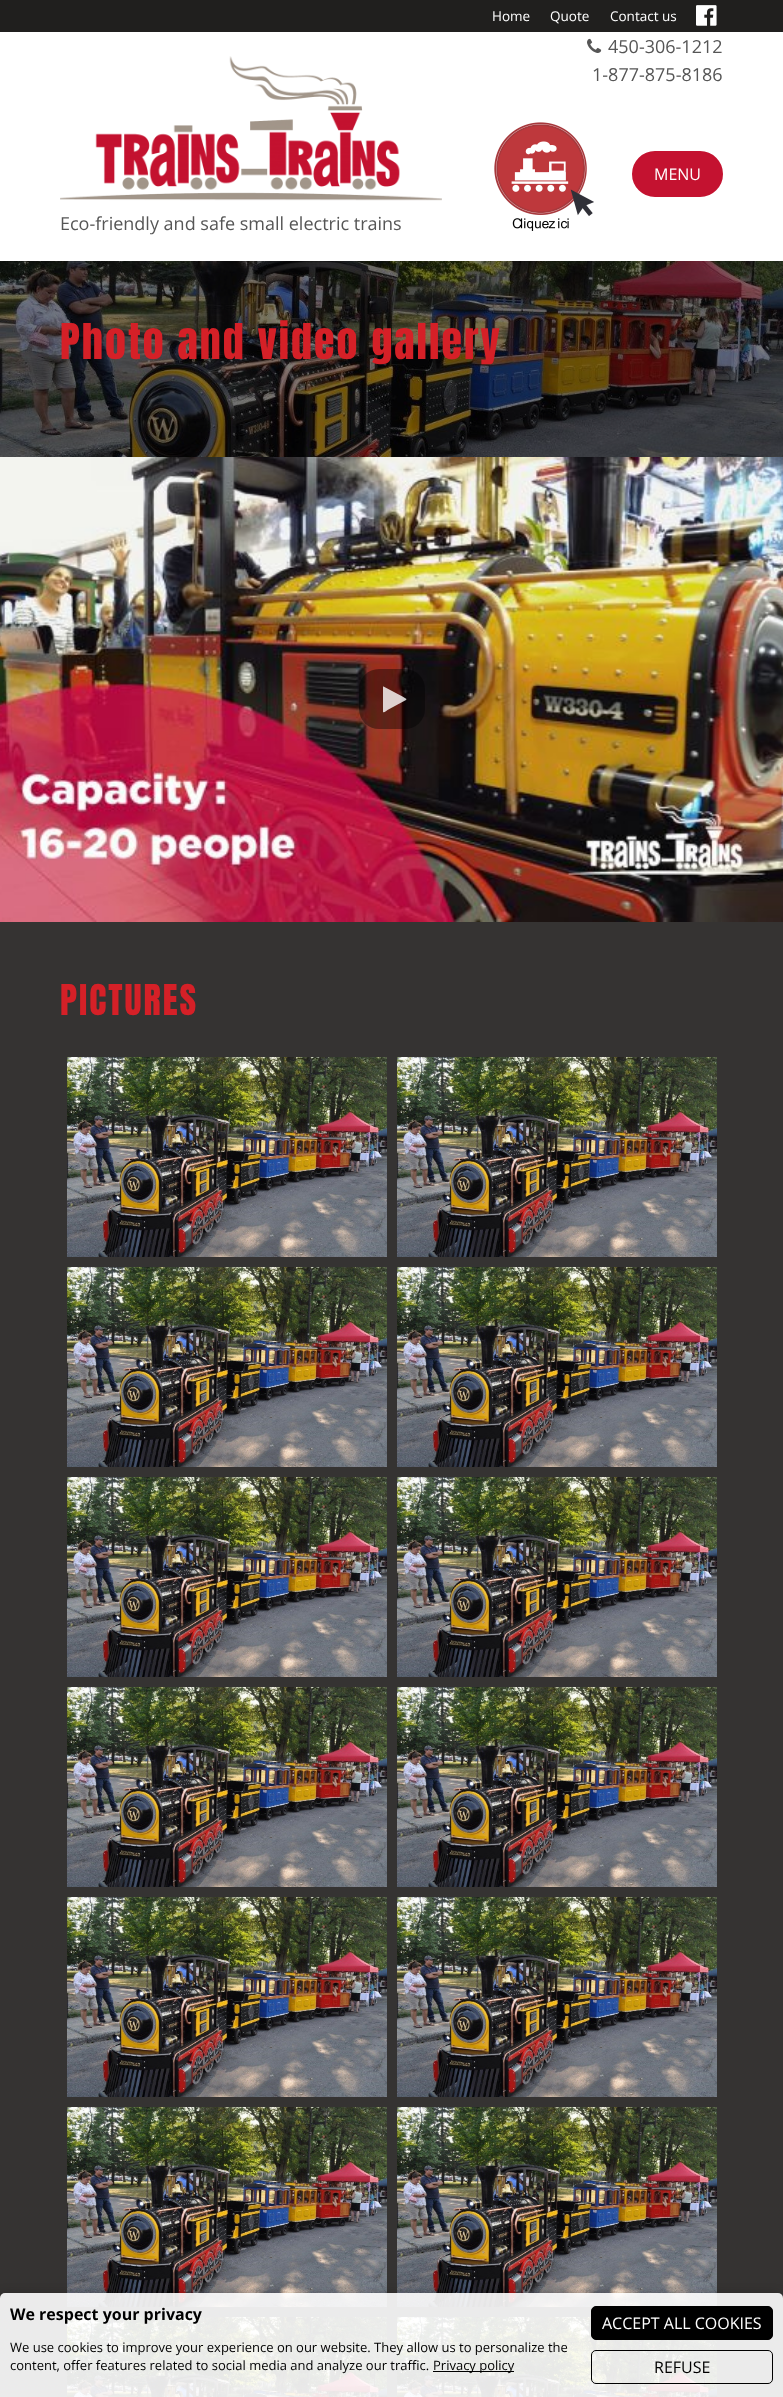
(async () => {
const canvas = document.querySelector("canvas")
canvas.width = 783
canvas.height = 2397
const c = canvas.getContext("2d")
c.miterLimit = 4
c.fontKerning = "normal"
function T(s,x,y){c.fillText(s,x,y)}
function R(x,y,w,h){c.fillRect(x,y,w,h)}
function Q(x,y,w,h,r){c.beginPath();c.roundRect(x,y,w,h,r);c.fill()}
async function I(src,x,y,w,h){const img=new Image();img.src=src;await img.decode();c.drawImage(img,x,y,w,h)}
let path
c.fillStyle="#fff"
R(0,0,783,2397)
c.fillStyle="#201f1e"
R(0,0,783,32)
c.font="13.5px Open Sans"
c.fillStyle="#fff"
T("Home",492,21)
T("Quote",550,21)
T("Contact us",610,21)
await I("1.png",696,5,21,21)
await I("2.png",587,38,15,15)
c.font="18px Open Sans"
c.fillStyle="#565656"
T("450-306-1212",608,53)
T("1-877-875-8186",592,81)
await I("3.png",494,122,100,109)
c.fillStyle="#c41230"
c.beginPath()
c.roundRect(633,152,89,44,22)
c.fill()
c.strokeStyle="#c41230"
c.lineWidth=2
c.stroke()
c.font="16px Open Sans"
c.fillStyle="#fff"
T("MENU",654,180)
await I("4.png",60,56,382,145)
c.font="18px Open Sans"
c.fillStyle="#565656"
T("Eco-friendly and safe small electric trains",60,230)
await I("5.png",0,261,783,196)
c.letterSpacing="2px"
c.font="42px Anton"
c.fillStyle="#d52027"
T("Photo and video gallery",60,359)
await I("6.png",0,457,783,465)
c.fillStyle="#00000066"
Q(359,669,66,60,20)
c.fillStyle="#ffffffcc"
path = new Path2D("M406 700l-18.5 10c-.5 .5-3.5 3-4.5 2v-25.5h.5l19 10l4 2.5z")
c.fill(path)
c.fillStyle="#353332"
R(0,922,783,1475)
c.font="36px Anton"
c.fillStyle="#d52027"
T("PICTURES",60,1015)
await I("7.png",67,1057,320,200)
await I("8.png",397,1057,320,200)
await I("7.png",67,1267,320,200)
await I("8.png",397,1267,320,200)
await I("7.png",67,1477,320,200)
await I("8.png",397,1477,320,200)
await I("7.png",67,1687,320,200)
await I("8.png",397,1687,320,200)
await I("7.png",67,1897,320,200)
await I("8.png",397,1897,320,200)
await I("9.png",67,2107,320,200)
await I("10.png",397,2107,320,200)
await I("11.png",67,2317,320,80)
await I("12.png",397,2317,320,80)
c.save()
path = new Path2D("M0 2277h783v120h-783zm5 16h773c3 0 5 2 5 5v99h-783v-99c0-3 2-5 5-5z")
c.clip(path,"evenodd")
c.fillStyle="#00000033"
c.filter="blur(5px)"
c.beginPath()
c.roundRect(-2,2293,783,104,5)
c.fill()
c.filter="none"
c.restore()
c.fillStyle="#ffffffe6"
c.beginPath()
c.roundRect(0,2293,783,104,[5,5,0,0])
c.fill()
c.letterSpacing="0px"
c.font="bold 16px Open Sans"
c.fillStyle="#000"
T("We respect your privacy",10,2320)
c.font="13px Open Sans"
T("We use cookies to improve your experience on our website. They allow us to personalize the",10,2352)
T("content, offer features related to social media and analyze our traffic.",10,2370)
R(433,2371,81,1)
T("Privacy policy",433,2370)
c.beginPath()
c.roundRect(591.5,2306.5,181,33,4.5)
c.fill()
c.strokeStyle="#000"
c.lineWidth=1
c.stroke()
c.font="16px Open Sans"
c.fillStyle="#fff"
T("ACCEPT ALL COOKIES",602,2329)
c.beginPath()
c.roundRect(591.5,2350.5,181,33,4.5)
c.stroke()
c.fillStyle="#000"
T("REFUSE",654,2373)
})()
